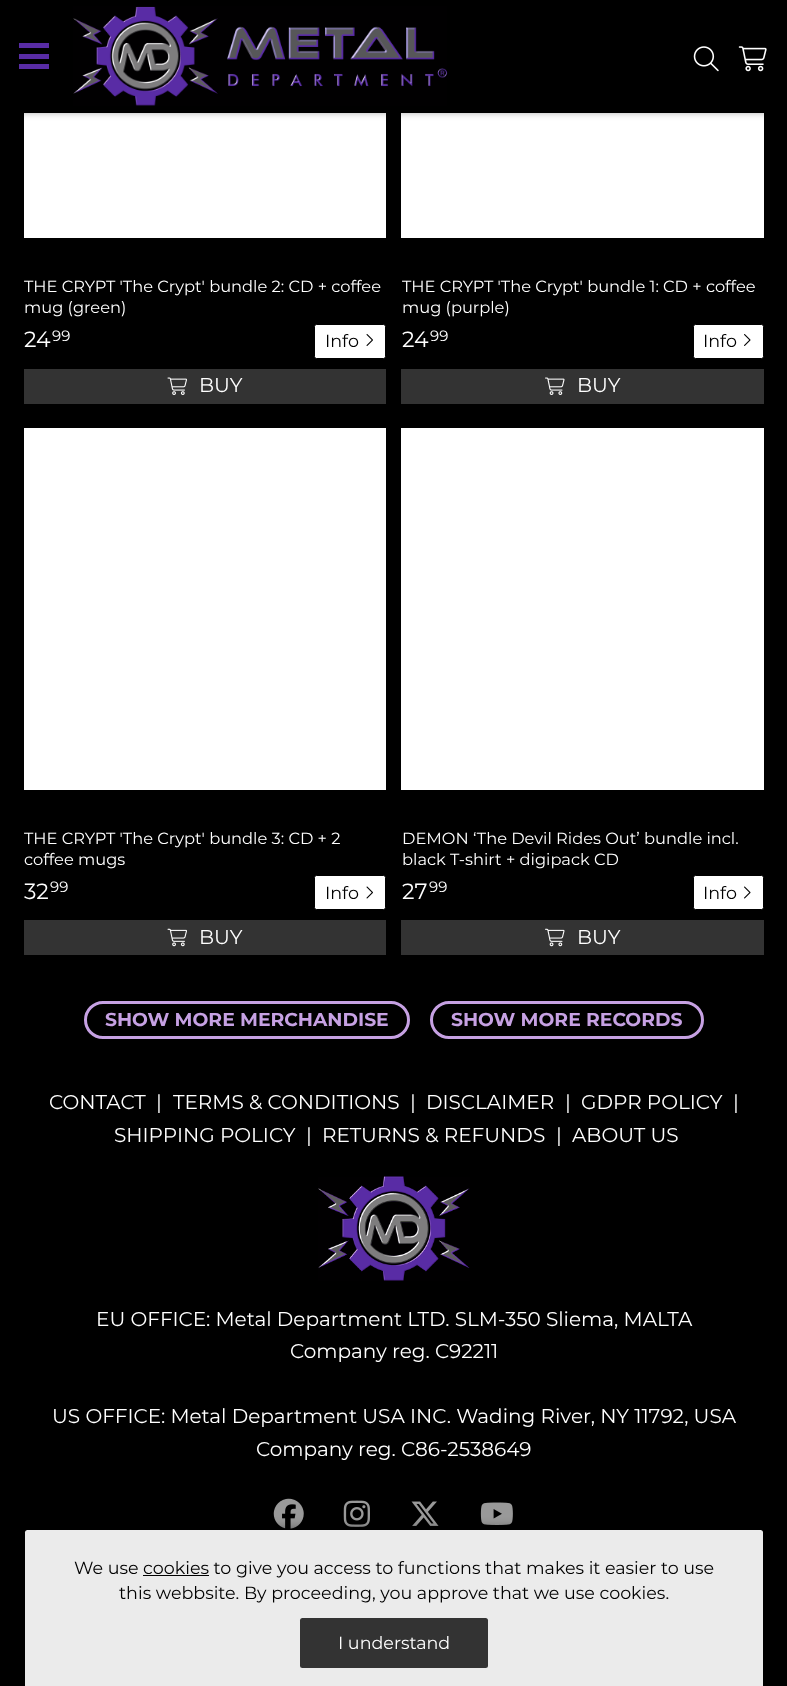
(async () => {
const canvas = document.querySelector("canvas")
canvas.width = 787
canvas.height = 1686
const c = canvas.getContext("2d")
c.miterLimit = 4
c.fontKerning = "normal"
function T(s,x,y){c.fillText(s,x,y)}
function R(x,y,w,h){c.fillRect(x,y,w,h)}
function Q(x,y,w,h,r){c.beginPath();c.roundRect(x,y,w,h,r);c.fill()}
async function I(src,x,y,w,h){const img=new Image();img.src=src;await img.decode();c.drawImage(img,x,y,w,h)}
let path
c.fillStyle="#000"
R(0,0,787,1686)
c.fillStyle="#fff"
R(24,113,362,125)
R(401,113,363,125)
c.fillStyle="#00000099"
c.filter="blur(5px)"
c.beginPath()
c.rect(0,-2,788,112)
c.fill()
c.filter="none"
await I("1.png",73,6,375,100)
await I("2.png",693,46,26,26)
await I("3.png",738,46,29,26)
c.fillStyle="#592ca5"
R(19,43,30,5)
R(19,54,30,5)
R(19,64,30,5)
c.font="16.25px Montserrat"
c.fillStyle="#fff"
T("THE CRYPT 'The Crypt' bundle 2: CD + coffee",24,292)
T("mug (green)",24,313)
c.font="22px Montserrat"
T("24",24,347)
c.font="15px Montserrat"
T("99",52,341)
c.beginPath()
c.roundRect(314.5,324.5,71,34,2)
c.fill()
c.strokeStyle="#000"
c.stroke()
c.font="17.5px Montserrat"
c.fillStyle="#000"
T("Info",325,347)
await I("4.png",366,334,7,12)
c.fillStyle="#333"
R(24,369,362,35)
await I("5.png",167,377,20,18)
c.font="20px Montserrat"
c.fillStyle="#fff"
T("BUY",199,392)
c.font="16.25px Montserrat"
T("THE CRYPT 'The Crypt' bundle 1: CD + coffee",402,292)
T("mug (purple)",402,313)
c.font="22px Montserrat"
T("24",402,347)
c.font="15px Montserrat"
T("99",430,341)
c.beginPath()
c.roundRect(693.5,324.5,70,34,2)
c.fill()
c.stroke()
c.font="17.5px Montserrat"
c.fillStyle="#000"
T("Info",703,347)
await I("6.png",744,334,7,12)
c.fillStyle="#333"
R(401,369,363,35)
await I("7.png",545,377,20,18)
c.font="20px Montserrat"
c.fillStyle="#fff"
T("BUY",577,392)
R(24,428,362,362)
c.font="16.25px Montserrat"
T("THE CRYPT 'The Crypt' bundle 3: CD + 2",24,844)
T("coffee mugs",24,865)
c.font="22px Montserrat"
T("32",24,899)
c.font="15px Montserrat"
T("99",50,892)
c.beginPath()
c.roundRect(314.5,875.5,71,34,2)
c.fill()
c.stroke()
c.font="17.5px Montserrat"
c.fillStyle="#000"
T("Info",325,899)
await I("8.png",366,886,7,13)
c.fillStyle="#333"
R(24,920,362,35)
await I("9.png",167,928,20,19)
c.font="20px Montserrat"
c.fillStyle="#fff"
T("BUY",199,944)
R(401,428,363,362)
c.font="16.25px Montserrat"
T("DEMON ‘The Devil Rides Out’ bundle incl.",402,844)
T("black T-shirt + digipack CD",402,865)
c.font="22px Montserrat"
T("27",402,899)
c.font="15px Montserrat"
T("99",429,892)
c.beginPath()
c.roundRect(693.5,875.5,70,34,2)
c.fill()
c.stroke()
c.font="17.5px Montserrat"
c.fillStyle="#000"
T("Info",703,899)
await I("10.png",744,886,7,13)
c.fillStyle="#333"
R(401,920,363,35)
await I("11.png",545,928,20,19)
c.font="20px Montserrat"
c.fillStyle="#fff"
T("BUY",577,944)
c.beginPath()
c.roundRect(85.5,1002.5,323,35,17.5)
c.strokeStyle="#c6a1e3"
c.lineWidth=3
c.stroke()
c.font="bold 18.75px Montserrat"
c.fillStyle="#c6a1e3"
T("SHOW MORE MERCHANDISE",105,1026)
c.beginPath()
c.roundRect(431.5,1002.5,271,35,17.5)
c.stroke()
T("SHOW MORE RECORDS",451,1026)
c.font="20px Montserrat"
c.fillStyle="#fff"
T("CONTACT",49,1109)
T("|",156,1109)
T("TERMS & CONDITIONS",173,1109)
T("|",410,1109)
T("DISCLAIMER",426,1109)
T("|",565,1109)
T("GDPR POLICY",581,1109)
T("|",733,1109)
T("SHIPPING POLICY",114,1142)
T("|",306,1142)
T("RETURNS & REFUNDS",322,1142)
T("|",556,1142)
T("ABOUT US",572,1142)
await I("12.png",318,1176,152,105)
T("EU OFFICE: Metal Department LTD. SLM-350 Sliema, MALTA",96,1326)
T("Company reg. C92211",290,1358)
T("US OFFICE: Metal Department USA INC. Wading River, NY 11792, USA",52,1423)
T("Company reg. C86-2538649",256,1456)
await I("13.png",273,1498,31,31)
await I("14.png",343,1500,27,27)
await I("15.png",411,1501,28,25)
await I("16.png",480,1502,33,23)
c.fillStyle="#00000099"
c.filter="blur(6px)"
c.beginPath()
c.roundRect(25,1530,738,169,2.5)
c.fill()
c.filter="none"
c.fillStyle="#ebebeb"
path = new Path2D("M27.5 1530h733c1.5 0 2.5 1 2.5 2.5v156.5h-738v-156.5c0-1.5 1-2.5 2.5-2.5z")
c.fill(path)
c.font="17.5px Montserrat"
c.fillStyle="#000"
T("We use cookies to give you access to functions that makes it easier to use",74,1574)
R(143,1575,66,1)
T("this webbsite. By proceeding, you approve that we use cookies.",119,1599)
c.fillStyle="#333"
Q(300,1618,188,50,2.5)
c.fillStyle="#fff"
T("I understand",338,1649)
})()
